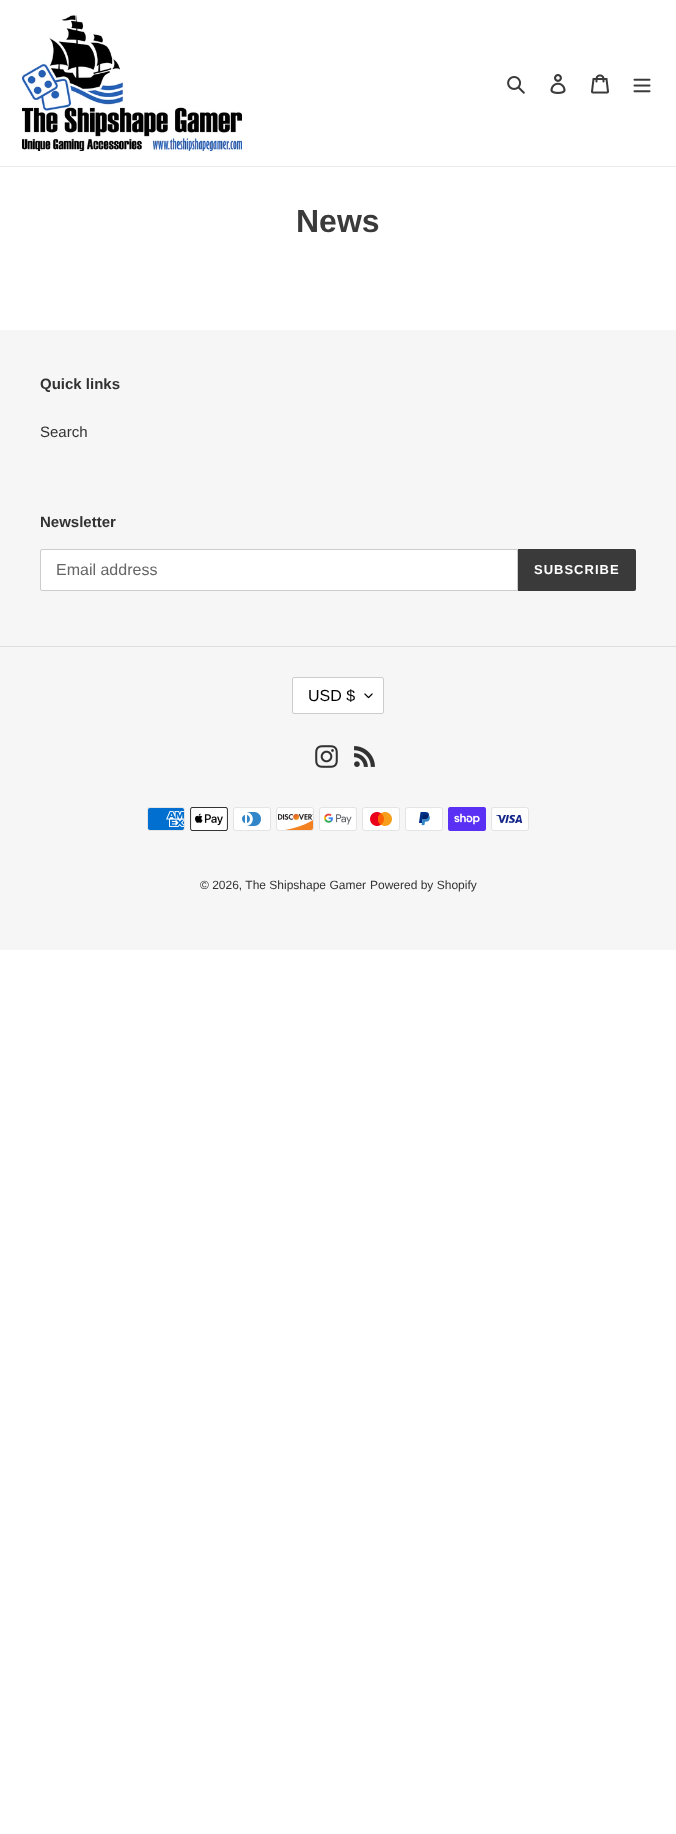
(async () => {
const canvas = document.querySelector("canvas")
canvas.width = 676
canvas.height = 1834
const c = canvas.getContext("2d")
c.miterLimit = 4
c.fontKerning = "normal"
function T(s,x,y){c.fillText(s,x,y)}
function R(x,y,w,h){c.fillRect(x,y,w,h)}
function Q(x,y,w,h,r){c.beginPath();c.roundRect(x,y,w,h,r);c.fill()}
async function I(src,x,y,w,h){const img=new Image();img.src=src;await img.decode();c.drawImage(img,x,y,w,h)}
c.fillStyle="#fff"
R(0,0,676,1834)
c.fillStyle="#ebebeb"
R(0,166,676,1)
await I("1.png",22,15,220,136)
await I("2.png",507,76,18,18)
await I("3.png",550,74,16,20)
await I("4.png",591,74,18,20)
await I("5.png",633,78,18,15)
c.font="bold 32px Liberation Sans"
c.fillStyle="#3a3a3a"
T("News",296,232)
c.fillStyle="#f6f6f6"
R(0,330,676,620)
c.font="bold 15px Liberation Sans"
c.fillStyle="#333232"
T("Quick links",40,389)
c.font="15px Liberation Sans"
T("Search",40,437)
c.font="bold 15px Liberation Sans"
T("Newsletter",40,527)
c.fillStyle="#fff"
c.beginPath()
c.roundRect(40.5,549.5,477,41,[1.5,0,0,1.5])
c.fill()
c.strokeStyle="#ccc"
c.stroke()
c.font="16px Liberation Sans"
c.fillStyle="#666"
T("Email address",56,575)
c.fillStyle="#3a3a3a"
c.beginPath()
c.roundRect(518,549,118,42,[0,2,2,0])
c.fill()
c.letterSpacing="1px"
c.font="bold 13px Liberation Sans"
c.fillStyle="#fff"
T("SUBSCRIBE",534,574)
c.fillStyle="#ddd"
R(0,646,676,1)
c.fillStyle="#fff"
Q(292,677,92,37,2)
await I("6.png",364,693,9,6)
c.beginPath()
c.roundRect(292.5,677.5,91,36,1.5)
c.stroke()
c.letterSpacing="0px"
c.font="16px Liberation Sans"
c.fillStyle="#000"
T("USD $",308,701)
await I("7.png",315,745,23,23)
await I("8.png",354,746,21,21)
await I("9.png",147,807,38,24)
await I("10.png",190,807,38,24)
await I("11.png",233,807,38,24)
await I("12.png",276,807,38,24)
await I("13.png",319,807,38,24)
await I("14.png",362,807,38,24)
await I("15.png",405,807,38,24)
await I("16.png",448,807,38,24)
await I("17.png",491,807,38,24)
c.font="12px Liberation Sans"
c.fillStyle="#333232"
T("© 2026, The Shipshape Gamer",200,889)
T("Powered by Shopify",370,889)
})()
